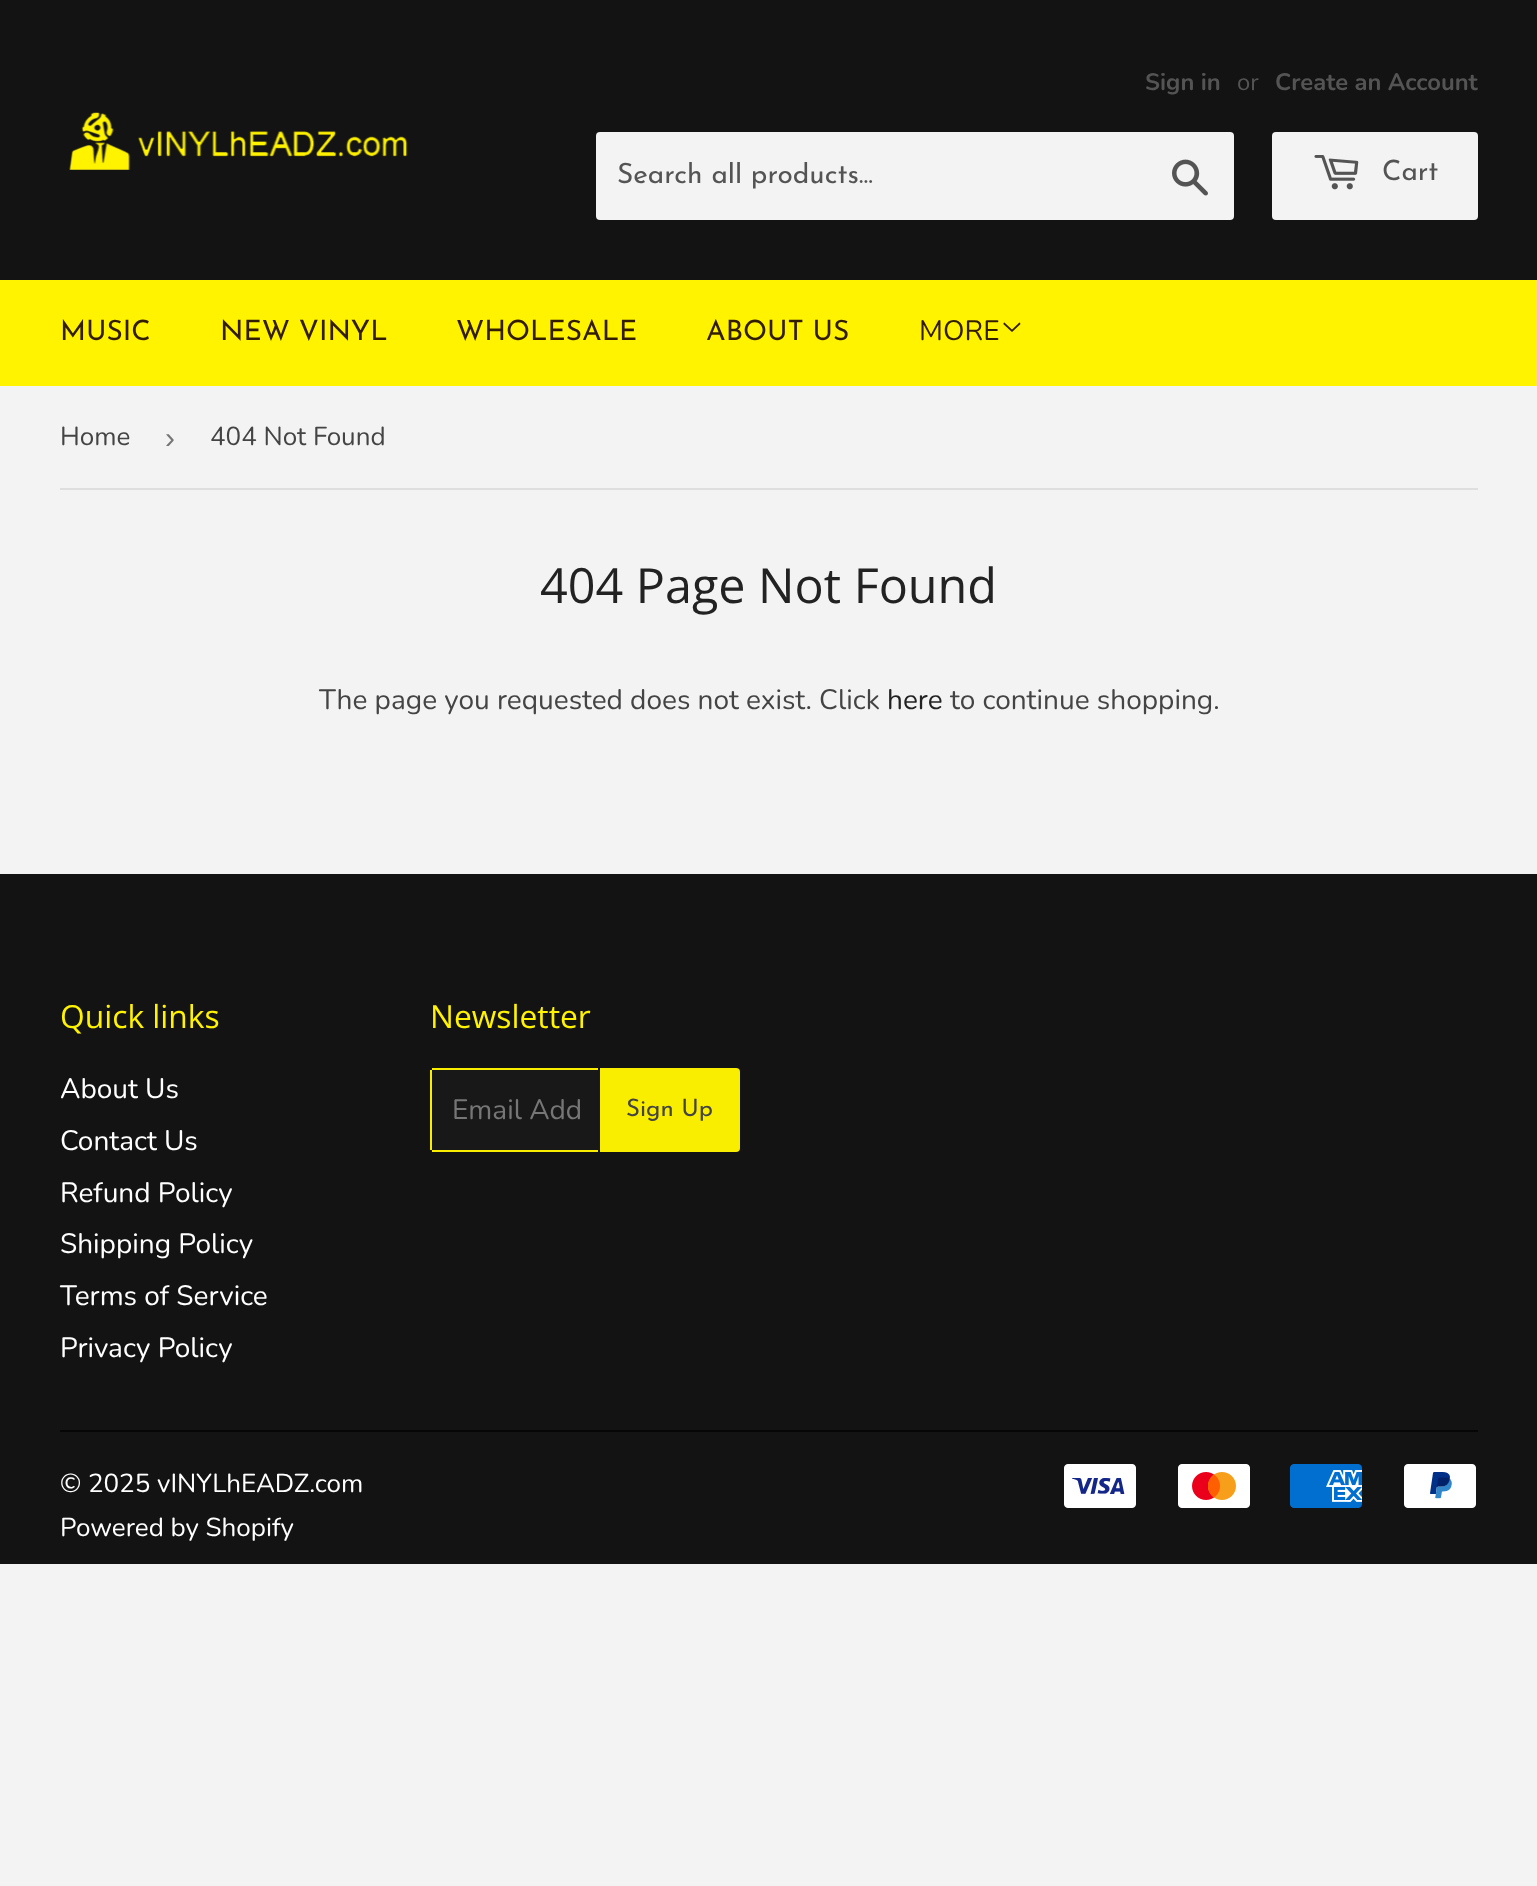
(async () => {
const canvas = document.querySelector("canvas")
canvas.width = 1537
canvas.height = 1886
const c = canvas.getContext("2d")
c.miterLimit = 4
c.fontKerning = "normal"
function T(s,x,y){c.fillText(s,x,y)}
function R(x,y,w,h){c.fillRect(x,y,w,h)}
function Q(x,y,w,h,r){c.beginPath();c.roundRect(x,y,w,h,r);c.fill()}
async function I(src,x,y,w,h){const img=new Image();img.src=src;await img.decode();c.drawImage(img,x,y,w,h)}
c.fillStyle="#f3f3f3"
R(0,0,1537,1886)
c.fillStyle="#131313"
R(0,0,1537,280)
await I("1.png",69,112,339,58)
c.font="bold 23.75px Nunito"
c.fillStyle="#545454"
T("Sign in",1145,90)
c.font="23.75px Nunito"
T("or",1237,90)
c.font="bold 23.75px Nunito"
T("Create an Account",1275,90)
c.fillStyle="#f3f3f3"
Q(596,132,638,88,4)
c.save()
c.beginPath()
c.rect(616,162,520,30)
c.clip()
c.font="28px Josefin Sans"
c.fillStyle="#545454"
T("Search all products...",617,183)
c.restore()
await I("2.png",1172,159,36,37)
Q(1272,132,206,88,4)
await I("3.png",1314,155,45,35)
c.font="28px Josefin Sans"
c.fillStyle="#545454"
T("Cart",1382,180)
c.fillStyle="#fff300"
R(0,280,1537,106)
c.fillStyle="#321d00"
T("MUSIC",60,340)
T("NEW VINYL",220,340)
T("WHOLESALE",456,340)
T("ABOUT US",706,340)
c.font="28px Nunito"
T("MORE",919,340)
await I("4.png",1003,322,18,10)
c.fillStyle="#dedede"
R(60,488,1418,2)
c.font="26px Nunito"
c.fillStyle="#444"
T("Home",60,445)
c.font="30px Liberation Sans"
c.fillStyle="#767676"
T("›",165,448)
c.font="26px Nunito"
c.fillStyle="#444"
T("404 Not Found",210,445)
c.font="48.5px Open Sans"
c.fillStyle="#222"
T("404 Page Not Found",540,603)
c.font="28px Nunito"
c.fillStyle="#444"
T("The page you requested does not exist. Click",319,709)
c.fillStyle="#222"
T("here",887,709)
c.fillStyle="#444"
T("to continue shopping.",950,709)
c.fillStyle="#131313"
R(0,874,1537,690)
c.font="31.75px Open Sans"
c.fillStyle="#fff300"
T("Quick links",60,1028)
c.font="28px Nunito"
c.fillStyle="#fff"
T("About Us",60,1098)
T("Contact Us",60,1150)
T("Refund Policy",60,1202)
T("Shipping Policy",60,1253)
T("Terms of Service",60,1305)
T("Privacy Policy",60,1357)
c.font="31.75px Open Sans"
c.fillStyle="#fff300"
T("Newsletter",430,1028)
c.fillStyle="#181818"
Q(430,1068,170,84,4)
c.fillStyle="#faee00"
R(432,1068,166,2)
R(432,1150,166,2)
R(430,1070,2,80)
c.font="28px Nunito"
c.fillStyle="#767676"
T("Email Add",452,1119)
c.fillStyle="#faee00"
c.beginPath()
c.roundRect(601,1069,138,82,[0,3,3,0])
c.fill()
c.strokeStyle="#faee00"
c.lineWidth=2
c.stroke()
c.font="24px Josefin Sans"
c.fillStyle="#444"
T("Sign Up",626,1116)
c.fillStyle="#060606"
R(60,1430,1418,2)
c.font="26px Nunito"
c.fillStyle="#fff"
T("© 2025 vINYLhEADZ.com",60,1492)
T("Powered by Shopify",60,1536)
await I("5.png",1064,1464,72,44)
await I("6.png",1178,1464,72,44)
await I("7.png",1290,1464,72,44)
await I("8.png",1404,1464,72,44)
})()
